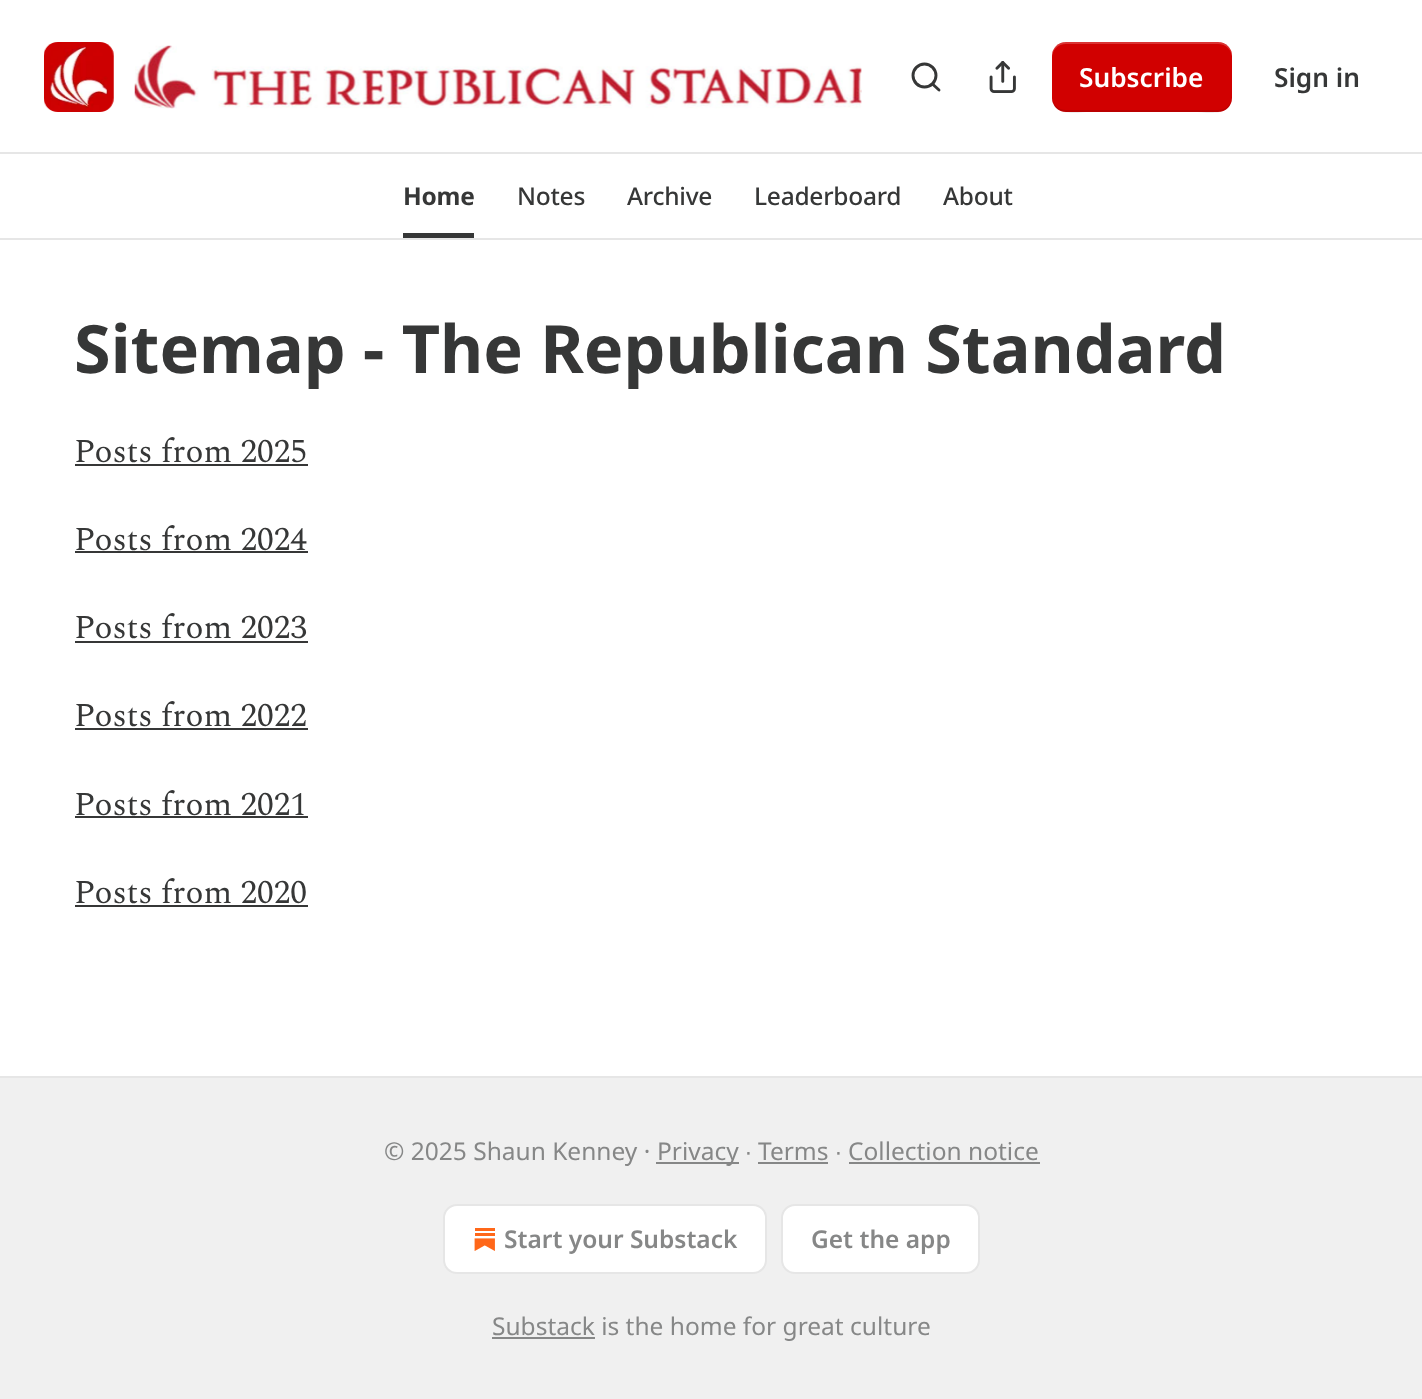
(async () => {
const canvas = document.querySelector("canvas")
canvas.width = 1422
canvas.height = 1399
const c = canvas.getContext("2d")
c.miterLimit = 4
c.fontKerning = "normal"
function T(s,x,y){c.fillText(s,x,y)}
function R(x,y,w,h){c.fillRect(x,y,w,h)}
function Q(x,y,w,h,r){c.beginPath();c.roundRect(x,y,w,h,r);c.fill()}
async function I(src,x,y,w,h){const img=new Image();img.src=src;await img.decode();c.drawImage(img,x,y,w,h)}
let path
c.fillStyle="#fff"
R(0,0,1422,1399)
await I("1.png",44,42,70,70)
await I("2.png",134,45,728,64)
c.beginPath()
c.arc(924.5,75.5,11.5,0,7)
c.strokeStyle="#363737"
c.lineWidth=2.9
c.stroke()
path = new Path2D("M939 90l-6.5-6")
c.lineCap="round"
c.lineJoin="round"
c.stroke(path)
await I("3.png",989,61,27,32)
c.fillStyle="#d10000"
Q(1052,42,180,70,14)
c.fillStyle="#0000001a"
path = new Path2D("M1052 96c0 22 24 16 39 16h102c15 0 39 6 39-16c0 8-6 14-14 14h-152c-8 0-14-6-14-14z")
c.fill(path)
c.fillStyle="#ffffff33"
path = new Path2D("M1066 44h152c8 0 14 6 14 14c0-22-24-16-39-16h-102c-15 0-39-6-39 16c0-8 6-14 14-14z")
c.fill(path)
c.font="600 26.25px Noto Sans"
c.fillStyle="#fff"
T("Subscribe",1079,87)
c.fillStyle="#363737"
T("Sign in",1274,87)
c.fillStyle="#e6e6e6"
R(0,152,1422,2)
R(0,238,1422,2)
c.fillStyle="#363737"
R(403,233,71,5)
c.letterSpacing="-0.25px"
c.font="bold 24.5px Noto Sans"
T("Home",403,205)
c.font="500 24.5px Noto Sans"
T("Notes",517,205)
T("Archive",627,205)
T("Leaderboard",754,205)
T("About",943,205)
c.letterSpacing="0px"
c.font="bold 66.5px Noto Sans"
T("Sitemap - The Republican Standard",74,373)
c.font="33.25px Spectral"
T("Posts from 2025",74,462)
R(75,464,233,2)
T("Posts from 2024",74,550)
R(75,551,233,2)
T("Posts from 2023",74,638)
R(75,641,233,2)
T("Posts from 2022",74,726)
R(75,728,233,2)
T("Posts from 2021",74,815)
R(75,816,233,2)
T("Posts from 2020",74,903)
R(75,905,233,2)
c.fillStyle="#f0f0f0"
R(0,1078,1422,321)
c.fillStyle="#e6e6e6"
R(0,1076,1422,2)
c.font="24.5px Noto Sans"
c.fillStyle="#868787"
T("© 2025 Shaun Kenney ·",384,1160)
R(656,1162,83,2)
T("Privacy",657,1160)
c.font="24.5px Liberation Sans"
T("∙",745,1160)
c.font="24.5px Noto Sans"
T("Terms",758,1160)
R(758,1162,70,2)
c.font="24.5px Liberation Sans"
T("∙",835,1160)
c.font="24.5px Noto Sans"
T("Collection notice",848,1160)
R(849,1162,191,2)
c.fillStyle="#fff"
c.beginPath()
c.roundRect(444,1205,322,68,13)
c.fill()
c.strokeStyle="#e6e6e6"
c.lineWidth=2
c.lineJoin="miter"
c.stroke()
await I("4.png",474,1228,21,23)
c.font="600 24.5px Noto Sans"
c.fillStyle="#868787"
T("Start your Substack",504,1248)
c.fillStyle="#fff"
c.beginPath()
c.roundRect(782,1205,197,68,13)
c.fill()
c.stroke()
c.fillStyle="#868787"
T("Get the app",811,1248)
R(492,1337,103,2)
c.font="24.5px Noto Sans"
T("Substack is the home for great culture",492,1335)
})()
